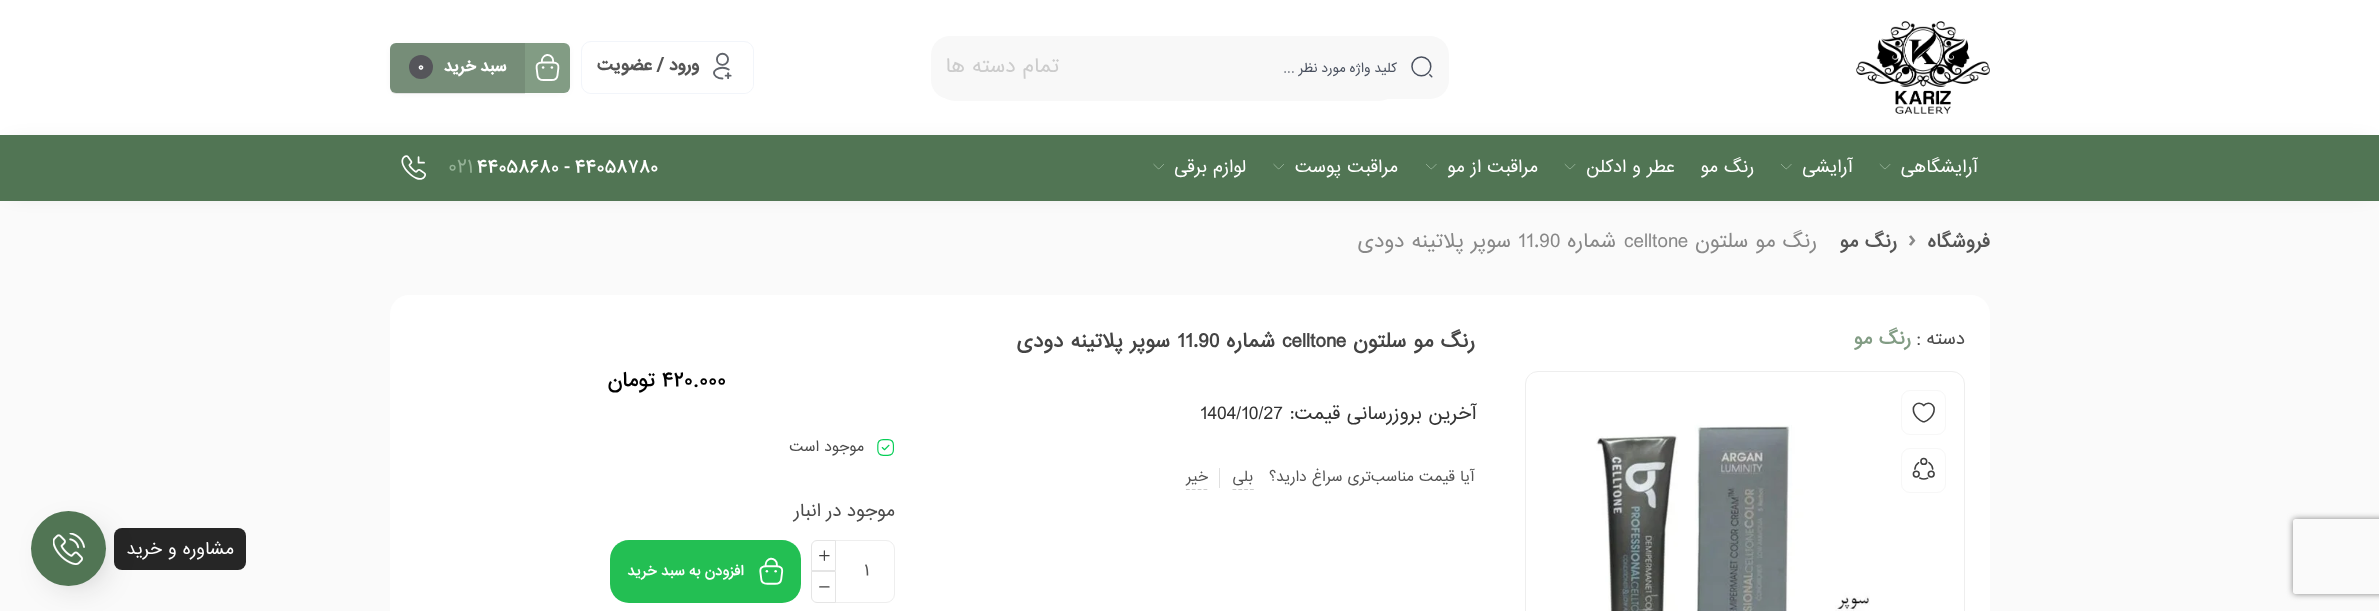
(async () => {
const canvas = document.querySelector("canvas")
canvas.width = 2379
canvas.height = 611
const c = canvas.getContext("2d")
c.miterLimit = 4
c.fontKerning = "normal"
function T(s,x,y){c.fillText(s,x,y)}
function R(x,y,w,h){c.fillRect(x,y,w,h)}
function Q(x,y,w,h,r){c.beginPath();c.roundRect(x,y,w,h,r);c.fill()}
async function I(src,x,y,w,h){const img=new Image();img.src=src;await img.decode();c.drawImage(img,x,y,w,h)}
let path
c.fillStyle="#fafafa"
R(0,0,2379,611)
c.fillStyle="#fff"
R(0,0,2379,135)
await I("1.png",1856,21,134,93)
c.fillStyle="#f8f8f8"
Q(931,36,518,63,19)
await I("2.png",1411,56,22,22)
Q(936,39,462,62,19)
c.direction="rtl"
c.font="13.75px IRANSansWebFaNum"
c.fillStyle="#4a515f"
T("کلید واژه مورد نظر ...",1397,72)
c.font="18.75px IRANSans"
c.fillStyle="#ccc"
T("تمام دسته ها",1059,72)
c.beginPath()
c.roundRect(581.5,41.5,172,52,9.5)
c.strokeStyle="#f2f5fa"
c.stroke()
c.fillStyle="#fff"
Q(583,43,170,50,9)
await I("3.png",713,52,19,28)
c.font="bold 17.5px IRANSansWebFaNum"
c.fillStyle="#555"
T("ورود / عضویت",699,70)
c.fillStyle="#0000001a"
c.filter="blur(4.5px)"
c.beginPath()
c.roundRect(394,48,172,42,2.5)
c.fill()
c.filter="none"
c.fillStyle="#829c84"
Q(390,43,180,50,6)
await I("4.png",535,54,25,27)
c.fillStyle="#00000017"
c.beginPath()
c.roundRect(390,43,135,51,[6,0,0,6])
c.fill()
c.font="bold 16.25px IRANSansWebFaNum"
c.fillStyle="#fff"
T("سبد خرید",506,71)
c.fillStyle="#55555a"
c.beginPath()
c.arc(421,67,12,0,7)
c.fill()
c.direction="ltr"
c.font="bold 12px IRANSansWebFaNum"
c.fillStyle="#fff"
T("0",418,70)
c.fillStyle="#00000029"
c.filter="blur(11px)"
c.beginPath()
c.rect(11,146,2358,44)
c.fill()
c.filter="none"
c.fillStyle="#517554"
R(0,135,2379,66)
c.direction="rtl"
c.font="16.25px IRANSans"
c.fillStyle="#fff"
T("آرایشگاهی",1977,172)
await I("5.png",1879,163,12,7)
T("آرایشی",1852,172)
await I("6.png",1781,164,11,6)
T("رنگ مو",1754,172)
T("عطر و ادکلن",1675,172)
await I("5.png",1564,163,12,7)
T("مراقبت از مو",1538,172)
await I("6.png",1426,164,11,6)
T("مراقبت پوست",1398,172)
await I("7.png",1273,163,11,7)
T("لوازم برقی",1246,172)
await I("7.png",1153,163,11,7)
c.direction="ltr"
c.font="500 17.5px IRANSansWebFaNum"
T("44058680 - 44058780",477,172)
c.font="18.75px IRANSansWebFaNum"
c.fillStyle="#95b297"
T("021",448,172)
await I("8.png",401,155,25,25)
c.save()
path = new Path2D("M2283 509h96v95h-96zm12.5 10h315c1.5 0 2.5 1 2.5 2.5v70c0 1.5-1 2.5-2.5 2.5h-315c-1.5 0-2.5-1-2.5-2.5v-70c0-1.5 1-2.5 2.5-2.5z")
c.clip(path,"evenodd")
c.fillStyle="#808080"
c.filter="blur(3px)"
c.beginPath()
c.roundRect(2293,519,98,75,2.5)
c.fill()
c.filter="none"
c.restore()
c.direction="rtl"
c.font="bold 17.5px IRANSans"
c.fillStyle="#555"
T("فروشگاه",1990,247)
c.direction="ltr"
c.font="600 24px Noto Sans"
c.fillStyle="#888"
T("›",1908,247)
c.direction="rtl"
c.font="bold 17.5px IRANSans"
c.fillStyle="#555"
T("رنگ مو",1897,247)
c.font="18.75px IRANSans"
c.fillStyle="#888"
T("رنگ مو سلتون",1817,247)
c.direction="ltr"
T("celltone",1624,247)
c.direction="rtl"
T("شماره",1616,247)
c.direction="ltr"
T("11.90",1518,247)
c.direction="rtl"
T("سوپر پلاتینه دودی",1511,247)
c.fillStyle="#fff"
Q(390,295,1600,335,19)
c.font="18.75px IRANSansWebFaNum"
c.fillStyle="#4b4b4b"
T("دسته :",1965,344)
c.font="bold 17.5px IRANSans"
c.fillStyle="#829c84"
T("رنگ مو",1911,344)
c.beginPath()
c.roundRect(1525.5,371.5,439,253,12.5)
c.strokeStyle="#eee"
c.stroke()
await I("9.png",1530,374,340,237)
c.beginPath()
c.roundRect(1901.5,390.5,44,44,8.5)
c.strokeStyle="#f7f7f7"
c.stroke()
await I("10.png",1912,402,23,21)
c.beginPath()
c.roundRect(1901.5,448.5,44,44,8.5)
c.stroke()
await I("11.png",1912,457,23,23)
c.font="bold 18.75px IRANSans"
c.fillStyle="#444"
T("رنگ مو سلتون",1475,347)
c.direction="ltr"
T("celltone",1282,347)
c.direction="rtl"
T("شماره",1275,347)
c.direction="ltr"
T("11.90",1177,347)
c.direction="rtl"
T("سوپر پلاتینه دودی",1170,347)
c.font="17.5px IRANSans"
c.fillStyle="#333"
T("آخرین بروزرسانی قیمت:",1476,419)
c.direction="ltr"
T("1404/10/27",1200,419)
c.direction="rtl"
c.font="13.75px IRANSans"
c.fillStyle="#555"
T("آیا قیمت مناسب‌تری سراغ دارید؟",1474,481)
path = new Path2D("M1232.5 489.5h21.5")
c.strokeStyle="#ccc"
c.lineWidth=1.2
c.setLineDash([3.75,2.09])
c.stroke(path)
T("بلی",1253,481)
c.fillStyle="#e0e0e0"
R(1219,468,1,20)
path = new Path2D("M1186 489.5h21.5")
c.stroke(path)
c.fillStyle="#555"
T("خیر",1208,481)
c.letterSpacing="-0.25px"
c.direction="ltr"
c.font="500 21px IRANSansWebFaNum"
c.fillStyle="#000"
T("۴۲۰.۰۰۰",662,386)
c.direction="rtl"
T("تومان",655,386)
await I("12.png",877,439,17,17)
c.letterSpacing="0px"
c.font="13.75px IRANSans"
c.fillStyle="#4b4b4b"
T("موجود است",864,451)
c.font="18.75px IRANSansWebFaNum"
T("موجود در انبار",895,516)
c.beginPath()
c.roundRect(811.5,540.5,83,62,8.5)
c.strokeStyle="#eee"
c.lineWidth=1
c.setLineDash([])
c.stroke()
c.direction="ltr"
c.font="16.25px IRANSansWebFaNum"
c.fillStyle="#555"
T("1",864,575)
c.fillStyle="#fff"
c.beginPath()
c.roundRect(811.5,540.5,24,30,[5.5,0,0,0])
c.fill()
c.strokeStyle="#e5e5e5"
c.stroke()
await I("13.png",819,550,11,11)
c.beginPath()
c.roundRect(811.5,571.5,24,31,[0,0,0,5.5])
c.fill()
c.stroke()
await I("14.png",819,586,11,2)
c.fillStyle="#23bf53"
Q(610,540,191,63,19)
await I("15.png",759,557,25,28)
c.direction="rtl"
c.font="500 15px IRANSansWebFaNum"
c.fillStyle="#fff"
T("افزودن به سبد خرید",744,575)
c.fillStyle="#1010104d"
c.filter="blur(17.5px)"
c.beginPath()
c.roundRect(54,535,45,45,22.5)
c.fill()
c.filter="none"
c.fillStyle="#000000d9"
Q(114,528,132,42,8)
c.font="16.25px IRANSans"
c.fillStyle="#fff"
T("مشاوره و خرید",234,554)
c.fillStyle="#517554"
c.beginPath()
c.arc(68.5,548.5,37.5,0,7)
c.fill()
await I("16.png",53,533,32,32)
})()
